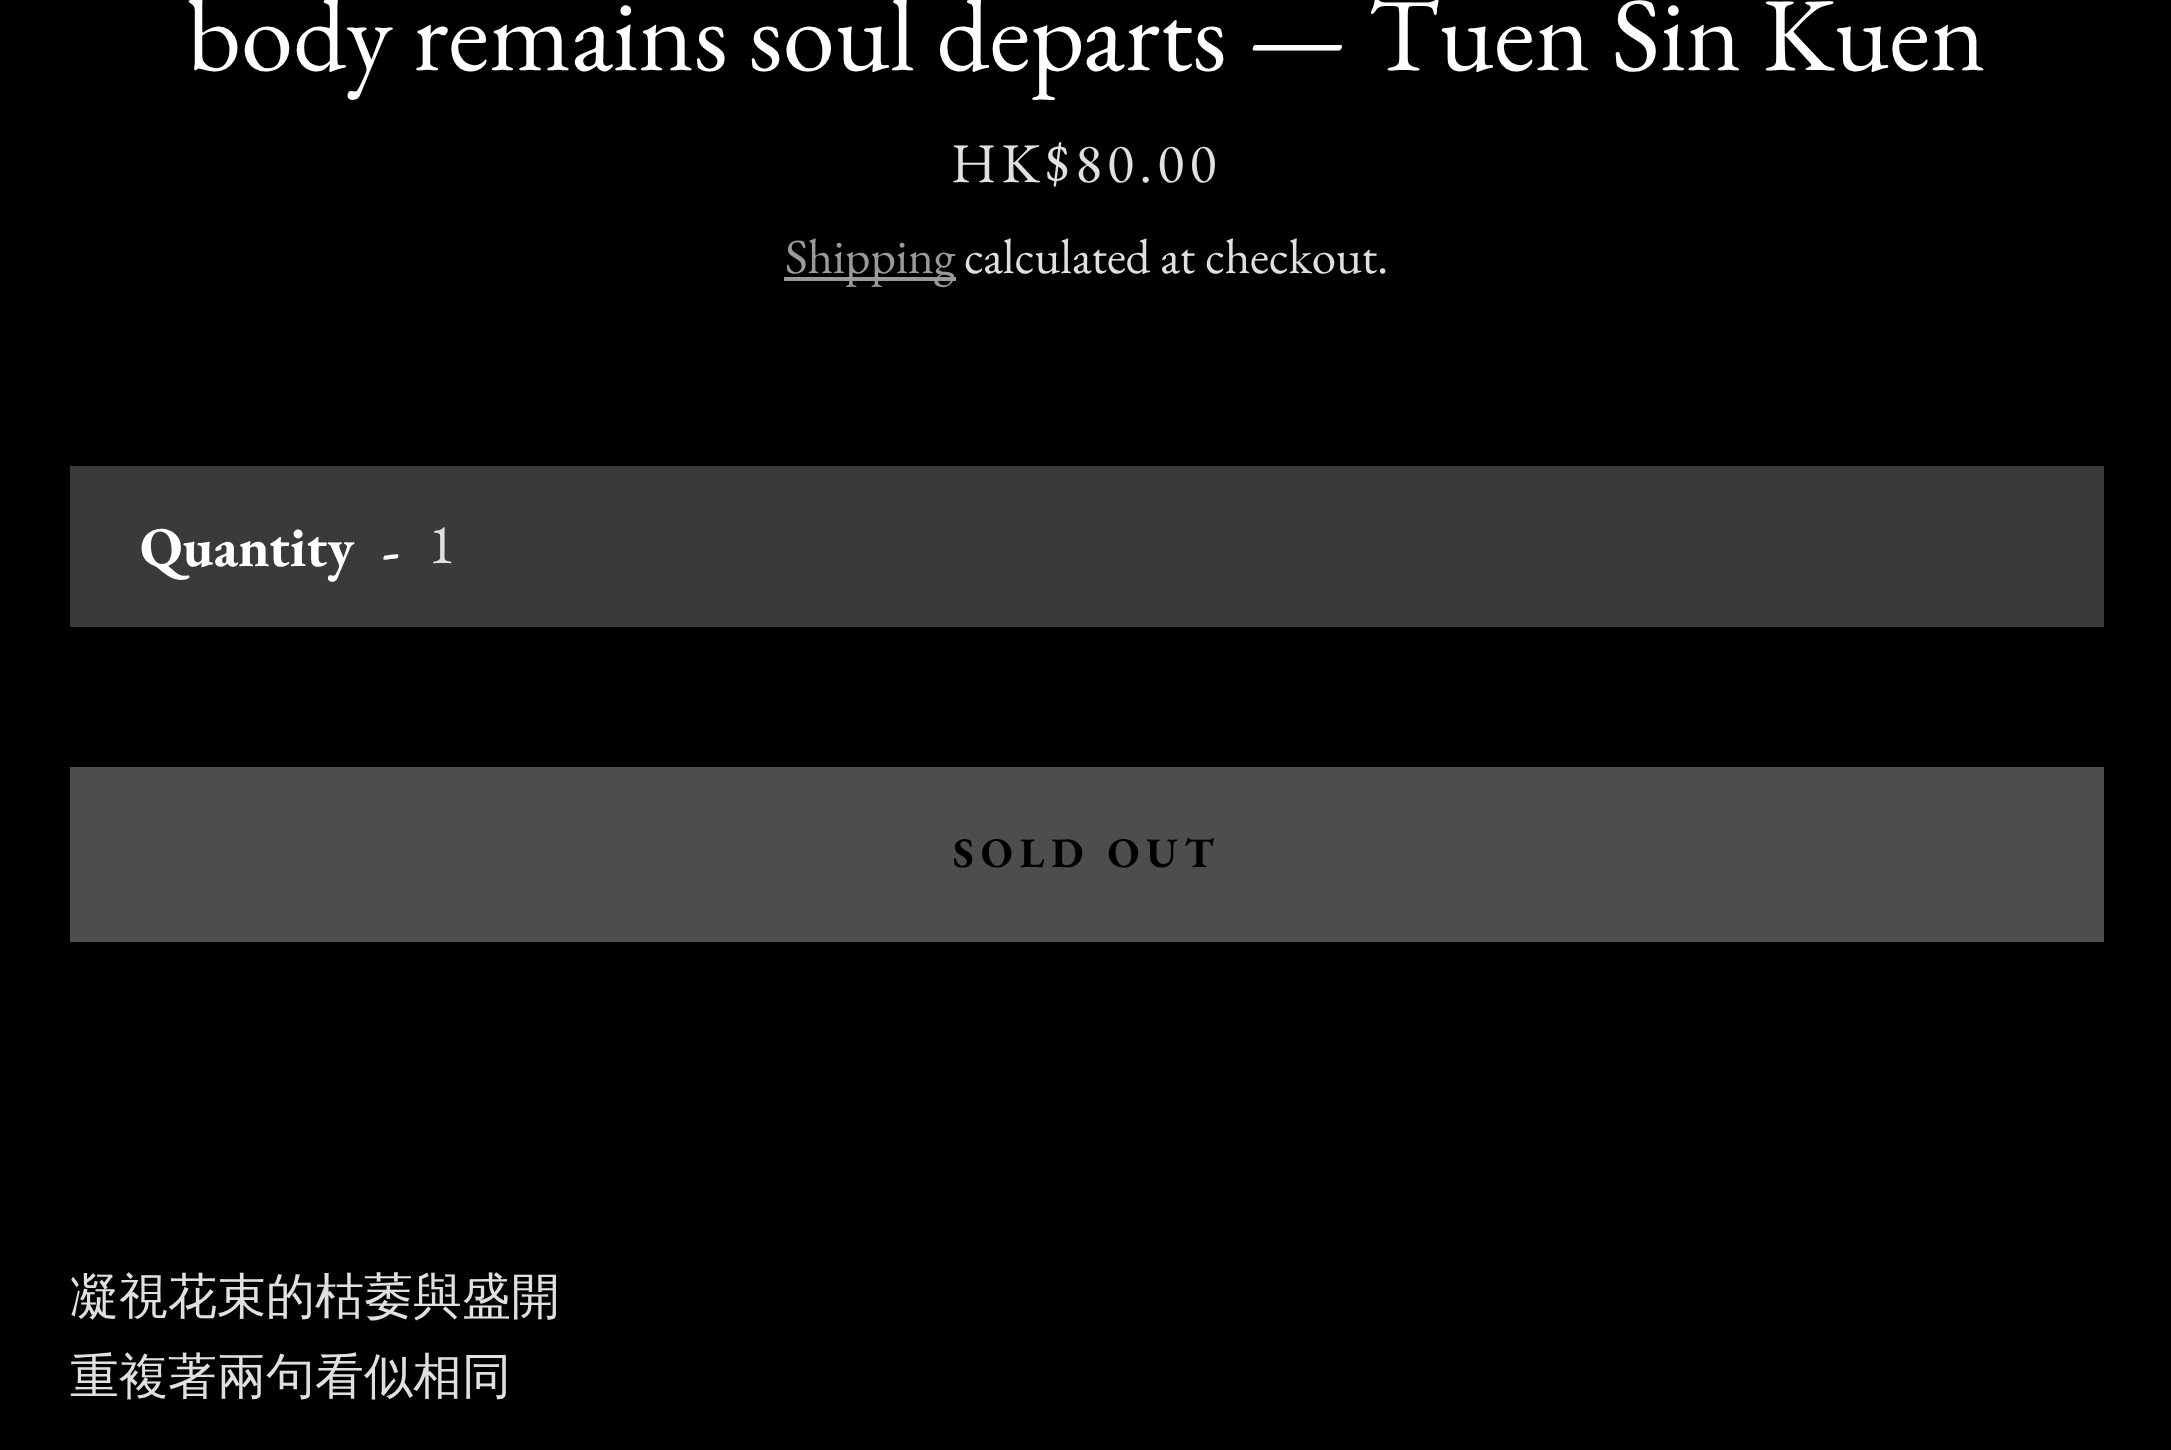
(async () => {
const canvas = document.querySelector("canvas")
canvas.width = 2171
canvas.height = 1450
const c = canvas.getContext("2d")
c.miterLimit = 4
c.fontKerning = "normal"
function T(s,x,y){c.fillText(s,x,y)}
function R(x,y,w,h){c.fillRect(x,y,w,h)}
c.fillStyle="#000"
R(0,0,2171,1450)
c.font="105px EB Garamond"
c.fillStyle="#fff"
T("body remains soul departs — Tuen Sin Kuen",187,70)
c.letterSpacing="5.25px"
c.font="56px EB Garamond"
c.fillStyle="#e0e0e0"
T("HK$80.00",951,182)
c.letterSpacing="0px"
c.font="49px EB Garamond"
c.fillStyle="#9a9a9a"
T("Shipping",785,273)
R(784,277,172,4)
c.fillStyle="#e0e0e0"
T("calculated at checkout.",964,273)
c.fillStyle="#3a3a3a"
R(70,466,2034,161)
c.font="bold 56px EB Garamond"
c.fillStyle="#fff"
T("Quantity",140,566)
T("-",382,569)
c.font="56px EB Garamond"
c.fillStyle="#e0e0e0"
T("1",428,563)
c.fillStyle="#4d4d4d"
R(70,767,2034,175)
c.letterSpacing="7px"
c.font="bold 42px EB Garamond"
c.fillStyle="#000"
T("SOLD OUT",953,867)
c.letterSpacing="0px"
c.font="500 49px WenQuanYi Zen Hei"
c.fillStyle="#e0e0e0"
T("凝視花束的枯萎與盛開",70,1313)
T("重複著兩句看似相同",70,1393)
})()
